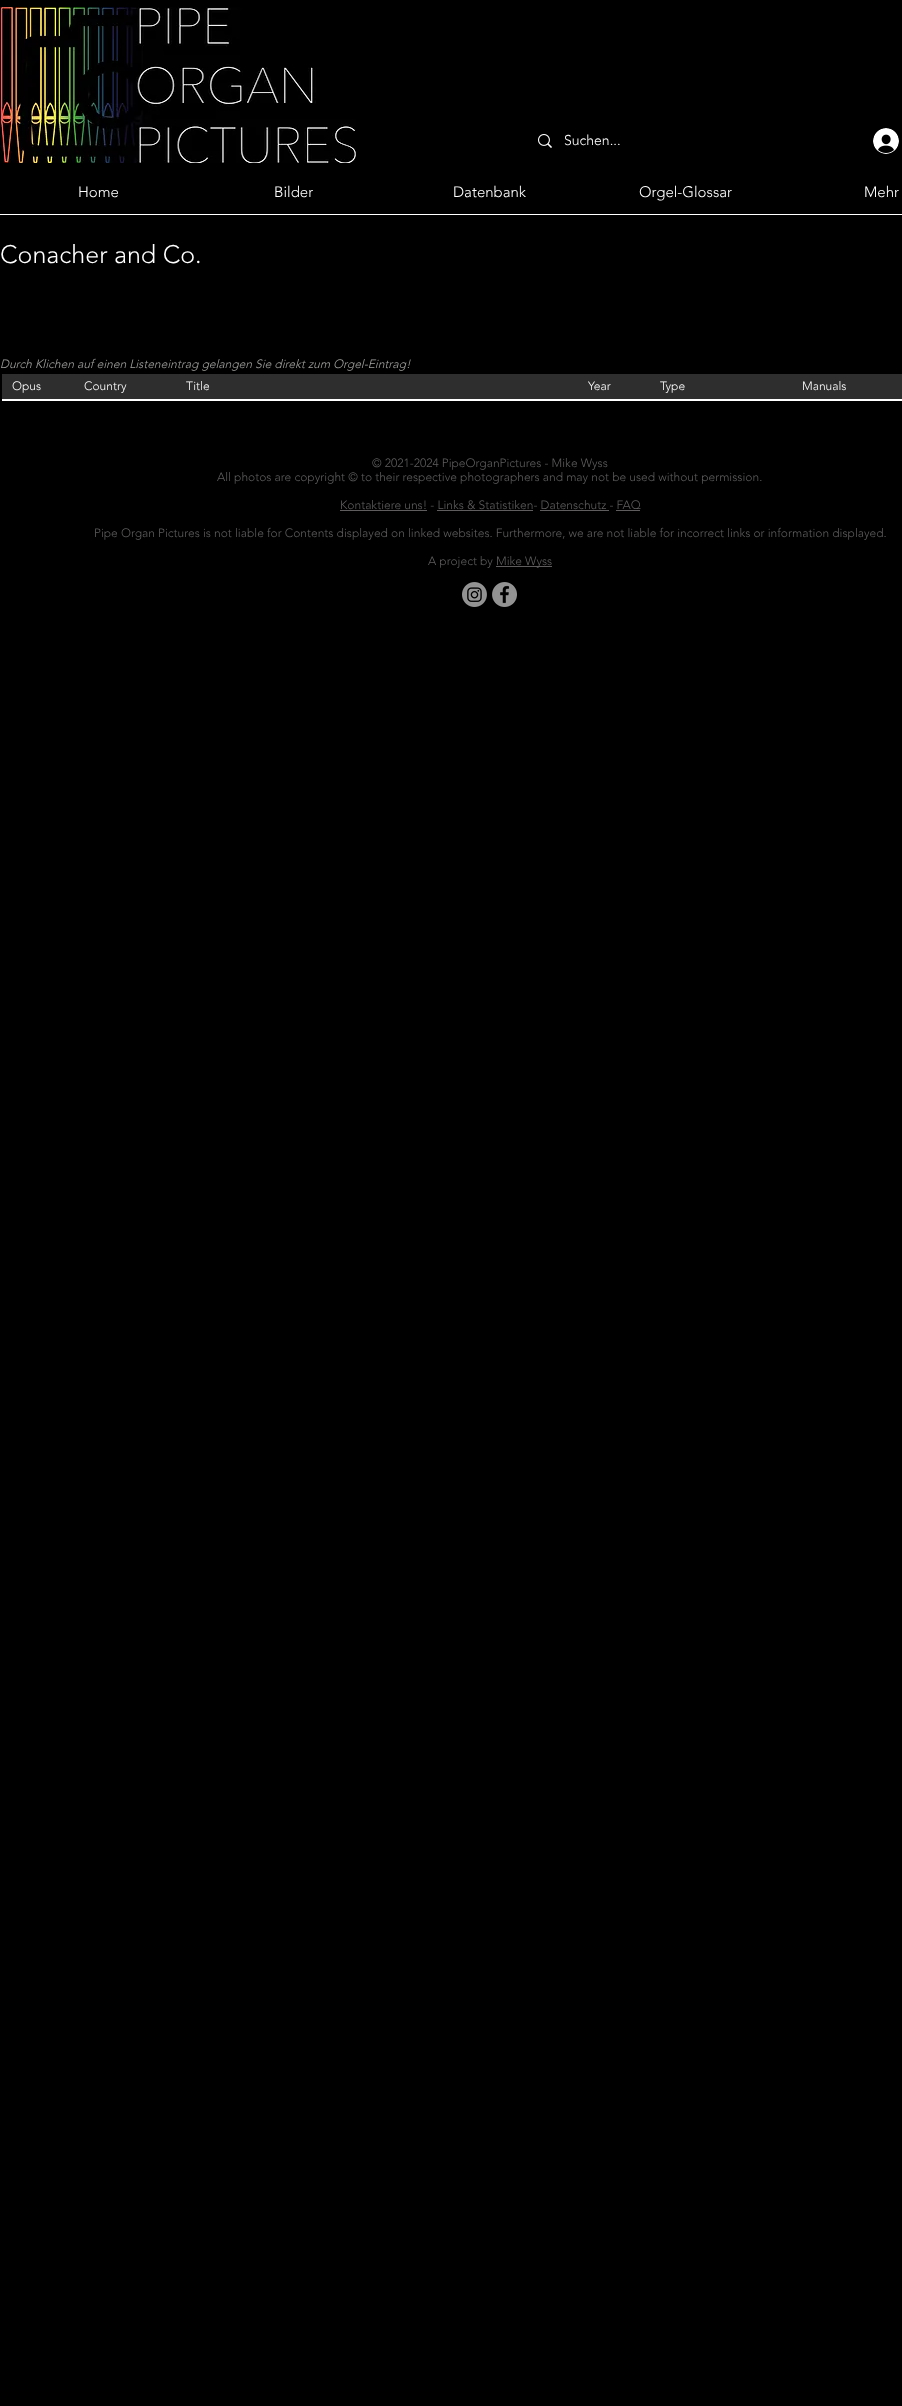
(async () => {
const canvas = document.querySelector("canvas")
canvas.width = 902
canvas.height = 2406
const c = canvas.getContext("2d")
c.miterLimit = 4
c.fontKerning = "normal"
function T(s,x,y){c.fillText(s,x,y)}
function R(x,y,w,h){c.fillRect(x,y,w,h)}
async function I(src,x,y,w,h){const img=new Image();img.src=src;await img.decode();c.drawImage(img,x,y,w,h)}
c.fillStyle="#000"
R(0,0,902,2406)
await I("1.png",0,7,356,156)
await I("2.png",538,134,14,14)
c.font="300 14px 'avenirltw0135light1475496'"
c.fillStyle="#fff"
T("Suchen...",564,145)
await I("3.png",873,128,26,26)
c.font="300 15px 'avenirltw0135light1475496'"
T("Home",78,197)
T("Bilder",274,197)
T("Datenbank",453,197)
T("Orgel-Glossar",639,197)
T("Mehr",864,197)
R(0,214,902,1)
c.font="300 25px 'avenirltw0135light1475496'"
T("Conacher and Co.",0,263)
c.font="italic 300 12px 'avenirltw0135light1475496'"
c.fillStyle="#a0a09f"
T("Durch Klichen auf einen Listeneintrag gelangen Sie direkt zum Orgel-Eintrag!",0,368)
c.fillStyle="#2f2e2e"
R(2,374,900,25)
c.fillStyle="#fff"
R(2,399,900,2)
c.font="300 12px 'avenirltw0135light1475496'"
T("Opus",12,390)
T("Country",84,390)
T("Title",186,390)
T("Year",588,390)
T("Type",660,390)
T("Manuals",802,390)
c.fillStyle="#5f5d5d"
T("© 2021-2024 PipeOrganPictures - Mike Wyss",372,467)
T("All photos are copyright © to their respective photographers and may not be used without permission.",217,481)
T("Kontaktiere uns! - Links & Statistiken- Datenschutz - FAQ",340,509)
R(340,510,87,1)
R(437,510,96,1)
R(540,510,69,1)
R(616,510,24,1)
T("Pipe Organ Pictures is not liable for Contents displayed on linked websites. Furthermore, we are not liable for incorrect links or information displayed.",94,537)
T("A project by",428,565)
R(496,566,56,1)
T("Mike Wyss",496,565)
await I("4.png",462,582,25,25)
await I("5.png",492,582,25,25)
})()
